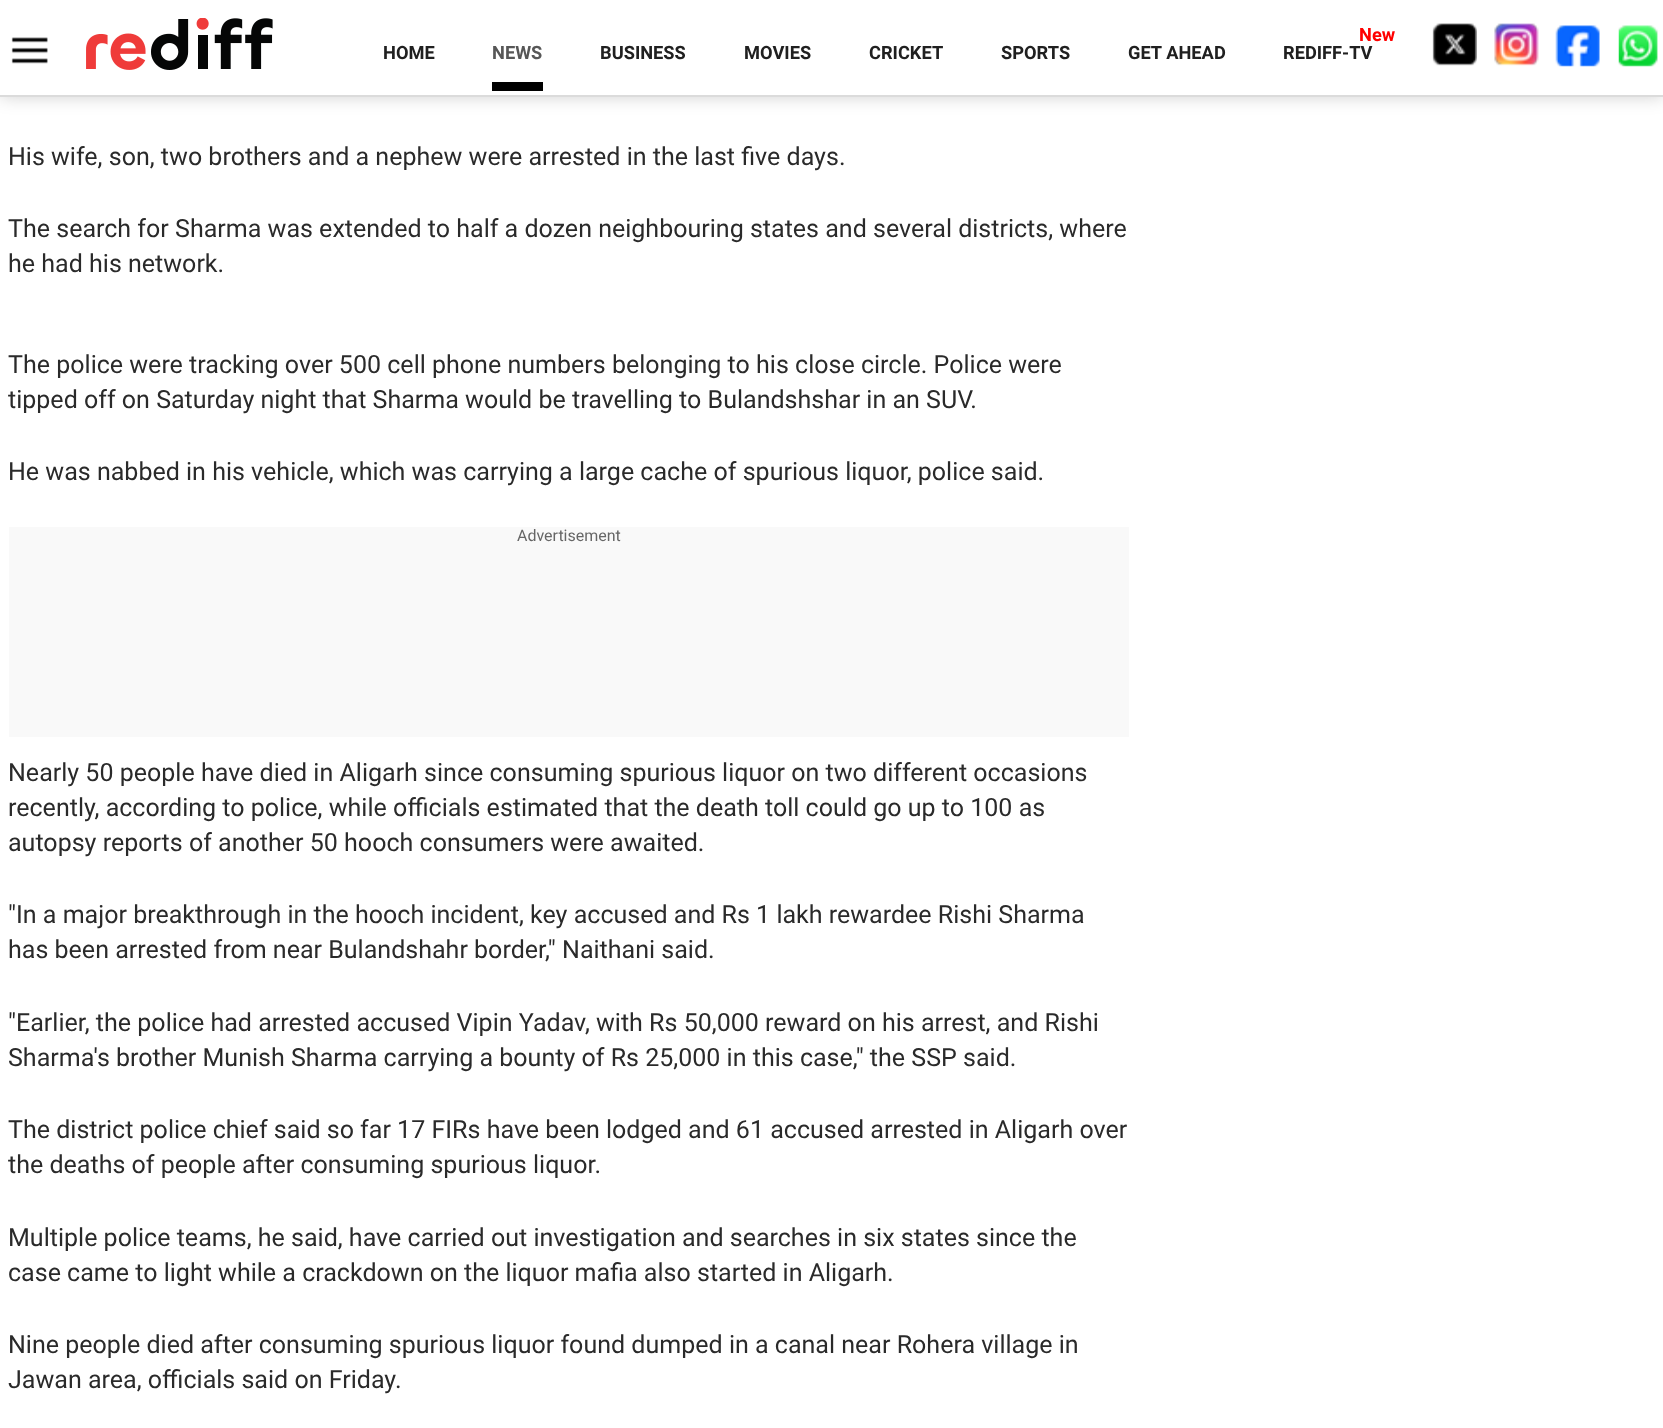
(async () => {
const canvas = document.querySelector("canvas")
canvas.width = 1663
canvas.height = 1428
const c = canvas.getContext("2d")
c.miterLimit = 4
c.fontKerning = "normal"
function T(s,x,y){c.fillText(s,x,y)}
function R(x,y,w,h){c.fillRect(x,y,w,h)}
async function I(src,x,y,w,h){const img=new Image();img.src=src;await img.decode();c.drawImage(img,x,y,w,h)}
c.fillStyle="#fff"
R(0,0,1663,1428)
c.fillStyle="#00000033"
c.filter="blur(9px)"
c.beginPath()
c.rect(0,0,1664,96)
c.fill()
c.filter="none"
c.fillStyle="#fff"
R(0,0,1663,95)
c.fillStyle="#dbdbdb"
R(0,95,1663,2)
await I("1.png",11,37,37,27)
await I("2.png",86,18,187,52)
c.font="bold 18.25px Roboto"
c.fillStyle="#202020"
T("HOME",383,59)
c.fillStyle="#575757"
T("NEWS",492,59)
c.fillStyle="#000"
R(492,82,51,9)
c.fillStyle="#202020"
T("BUSINESS",600,59)
T("MOVIES",744,59)
T("CRICKET",869,59)
T("SPORTS",1001,59)
T("GET AHEAD",1128,59)
c.fillStyle="#f00"
T("New",1359,41)
c.fillStyle="#202020"
T("REDIFF-TV",1283,59)
await I("3.png",1432,23,45,43)
await I("4.png",1494,23,45,43)
await I("5.png",1555,25,45,42)
await I("6.png",1618,25,40,42)
c.font="25.05px Roboto"
c.fillStyle="#2a2a2a"
T("His wife, son, two brothers and a nephew were arrested in the last five days.",8,165)
T("The search for Sharma was extended to half a dozen neighbouring states and several districts, where",8,237)
T("he had his network.",8,272)
T("The police were tracking over 500 cell phone numbers belonging to his close circle. Police were",8,373)
T("tipped off on Saturday night that Sharma would be travelling to Bulandshshar in an SUV.",8,408)
T("He was nabbed in his vehicle, which was carrying a large cache of spurious liquor, police said.",8,480)
c.fillStyle="#f9f9f9"
R(9,527,1120,210)
c.font="16px Roboto"
c.fillStyle="#666"
T("Advertisement",517,541)
c.font="25.05px Roboto"
c.fillStyle="#2a2a2a"
T("Nearly 50 people have died in Aligarh since consuming spurious liquor on two different occasions",8,781)
T("recently, according to police, while officials estimated that the death toll could go up to 100 as",8,816)
T("autopsy reports of another 50 hooch consumers were awaited.",8,851)
T("\"In a major breakthrough in the hooch incident, key accused and Rs 1 lakh rewardee Rishi Sharma",8,923)
T("has been arrested from near Bulandshahr border,\" Naithani said.",8,958)
T("\"Earlier, the police had arrested accused Vipin Yadav, with Rs 50,000 reward on his arrest, and Rishi",8,1031)
T("Sharma's brother Munish Sharma carrying a bounty of Rs 25,000 in this case,\" the SSP said.",8,1066)
T("The district police chief said so far 17 FIRs have been lodged and 61 accused arrested in Aligarh over",8,1138)
T("the deaths of people after consuming spurious liquor.",8,1173)
T("Multiple police teams, he said, have carried out investigation and searches in six states since the",8,1246)
T("case came to light while a crackdown on the liquor mafia also started in Aligarh.",8,1281)
T("Nine people died after consuming spurious liquor found dumped in a canal near Rohera village in",8,1353)
T("Jawan area, officials said on Friday.",8,1388)
})()
